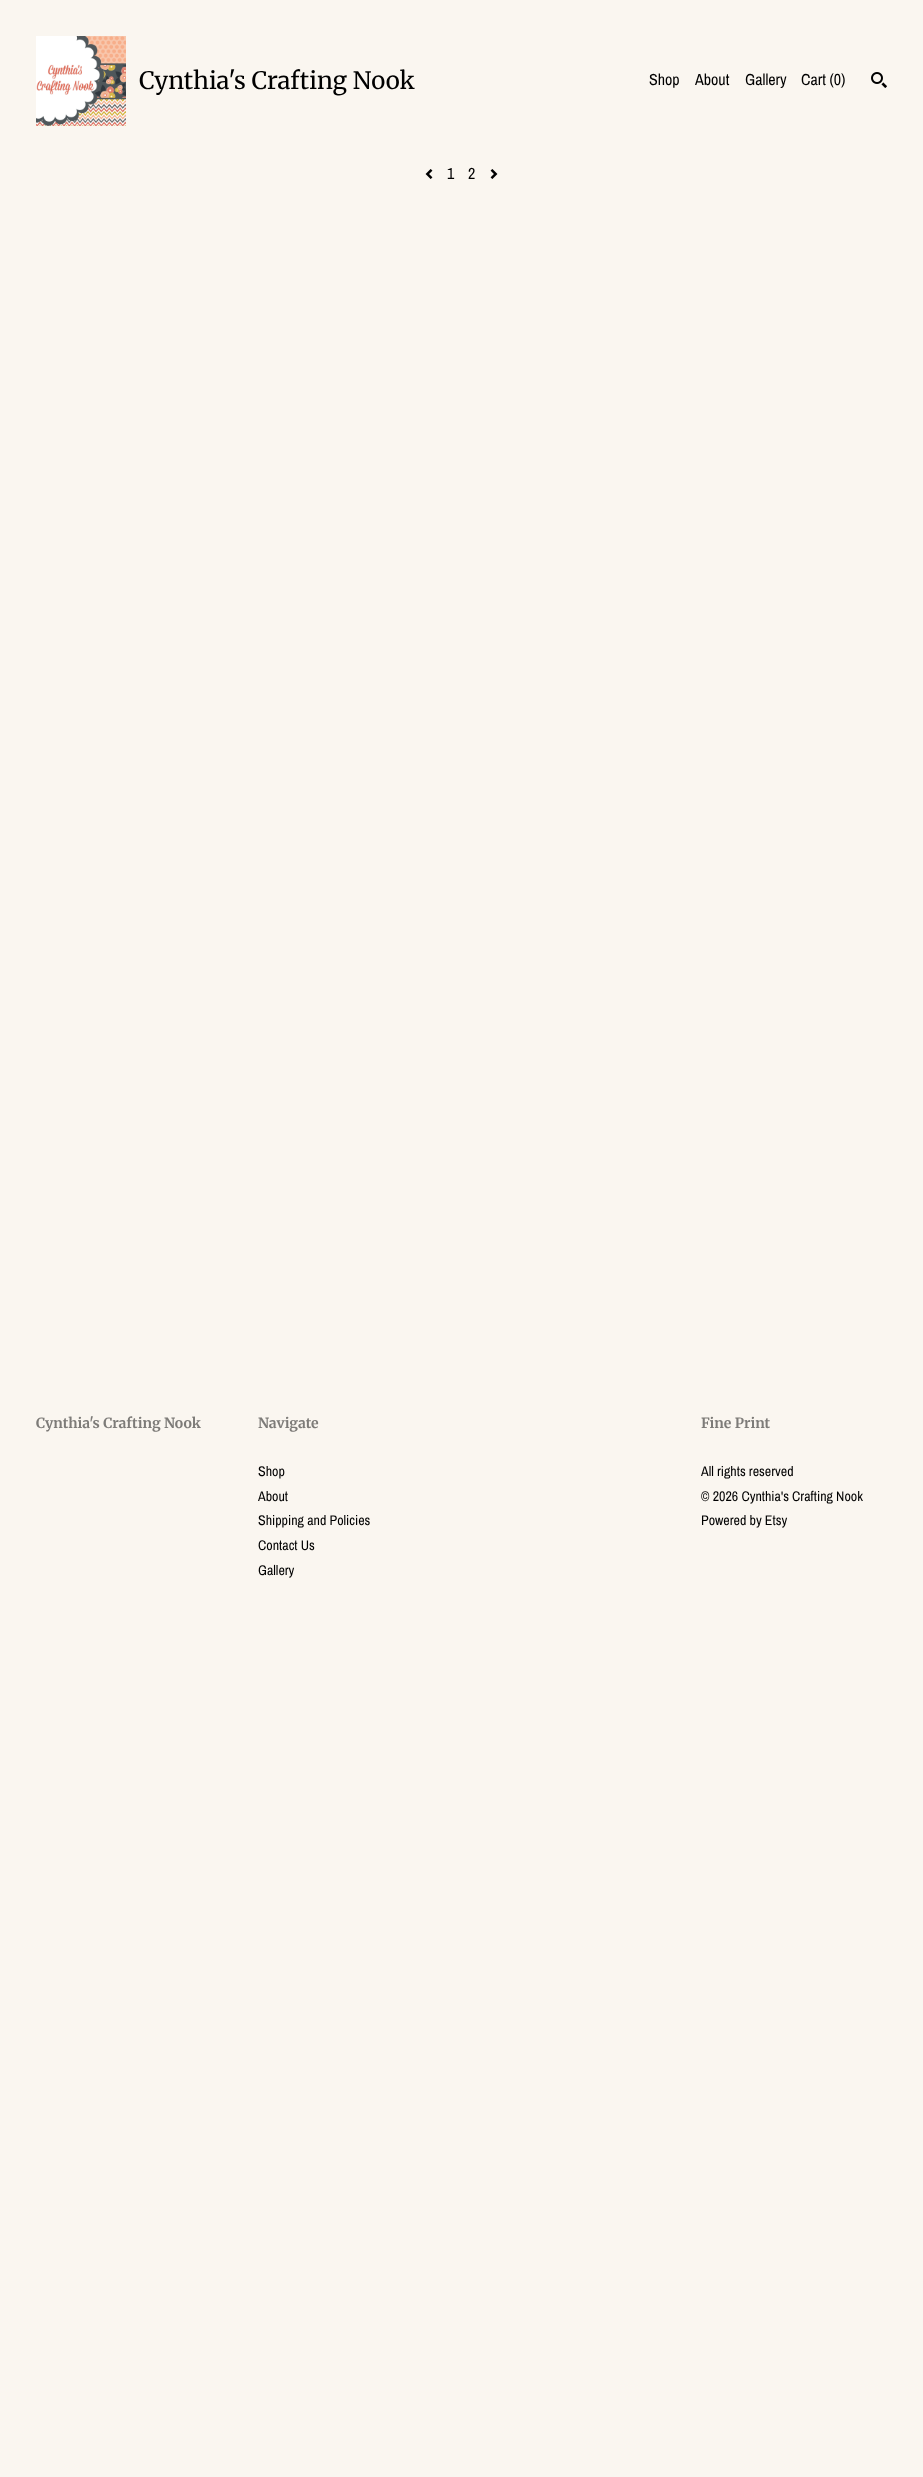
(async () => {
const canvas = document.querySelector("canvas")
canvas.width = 923
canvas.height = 2477
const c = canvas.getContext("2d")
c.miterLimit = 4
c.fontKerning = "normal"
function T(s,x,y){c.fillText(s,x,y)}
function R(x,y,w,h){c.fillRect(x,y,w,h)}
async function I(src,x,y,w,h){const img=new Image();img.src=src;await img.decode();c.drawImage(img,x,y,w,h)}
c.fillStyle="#faf6f0"
R(0,0,923,2477)
await I("1.png",36,36,90,90)
c.font="24px Merriweather"
c.fillStyle="#000"
T("Cynthia's Crafting Nook",139,89)
c.font="16px Archivo Narrow"
T("Shop",649,85)
T("About",695,85)
T("Gallery",745,85)
T("Cart (0)",801,85)
await I("2.png",871,72,16,16)
await I("3.png",425,169,8,10)
T("1",447,179)
T("2",468,179)
await I("4.png",490,169,8,10)
c.font="bold 14px Merriweather"
c.fillStyle="#7d7b78"
T("Cynthia's Crafting Nook",36,1428)
T("Navigate",258,1428)
c.font="14px Archivo Narrow"
c.fillStyle="#000"
T("Shop",258,1476)
T("About",258,1501)
T("Shipping and Policies",258,1525)
T("Contact Us",258,1550)
T("Gallery",258,1575)
c.font="bold 14px Merriweather"
c.fillStyle="#7d7b78"
T("Fine Print",701,1428)
c.font="14px Archivo Narrow"
c.fillStyle="#000"
T("All rights reserved",701,1476)
T("© 2026 Cynthia's Crafting Nook",701,1501)
T("Powered by Etsy",701,1525)
})()
